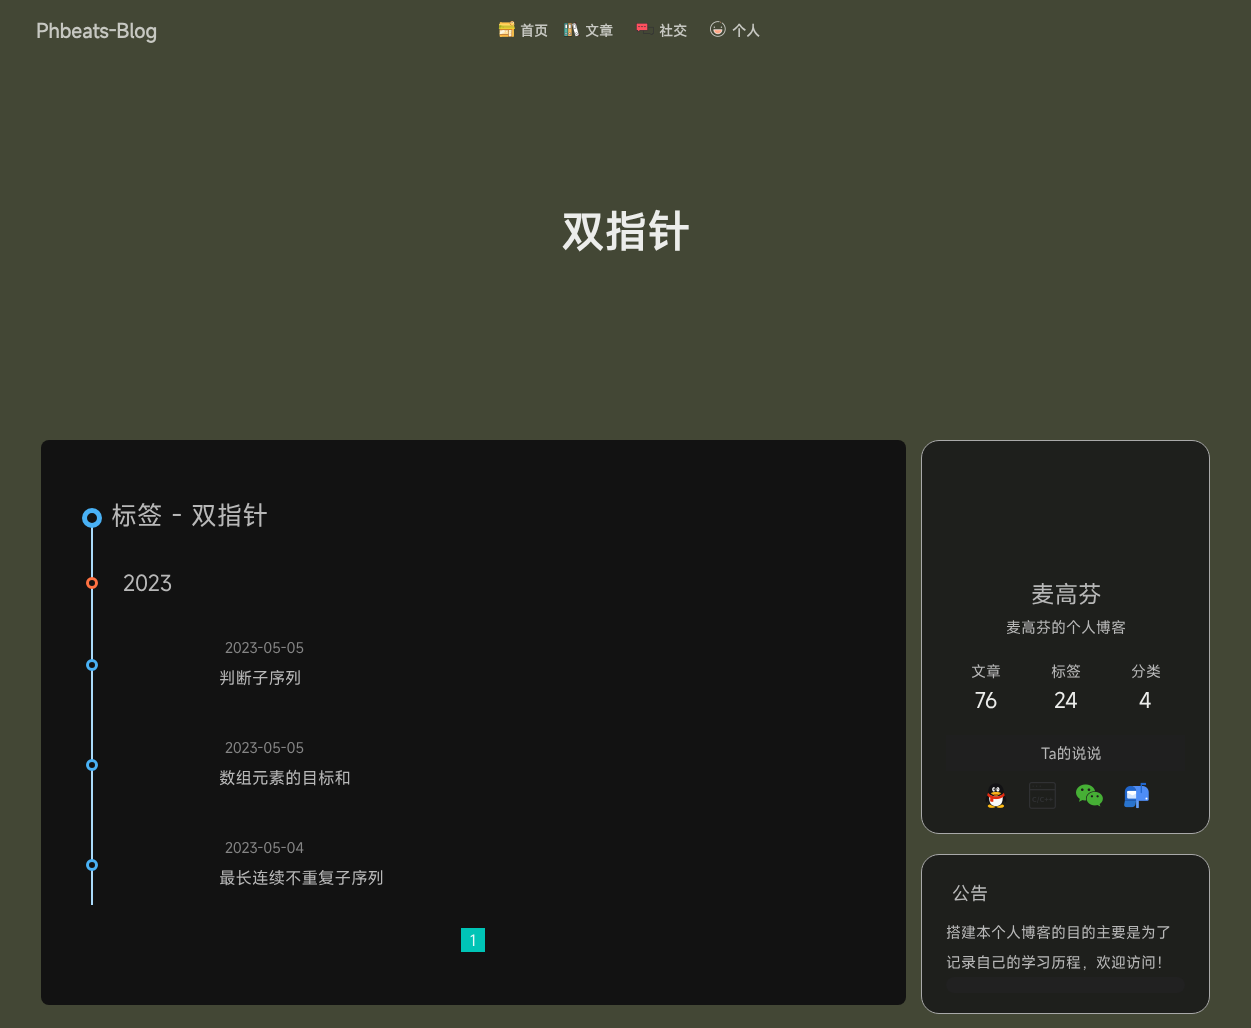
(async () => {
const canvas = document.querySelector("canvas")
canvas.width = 1251
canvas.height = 1028
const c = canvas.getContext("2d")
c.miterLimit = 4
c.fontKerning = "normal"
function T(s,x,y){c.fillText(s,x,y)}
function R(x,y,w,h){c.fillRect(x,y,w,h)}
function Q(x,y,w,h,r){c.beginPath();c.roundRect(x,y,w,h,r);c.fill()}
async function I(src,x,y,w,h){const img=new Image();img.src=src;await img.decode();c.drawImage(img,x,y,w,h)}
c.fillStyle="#434735"
R(0,0,1251,1028)
c.font="bold 19.5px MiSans"
c.fillStyle="#c7c8c2"
T("Phbeats-Blog",36,38)
await I("1.png",498,21,17,16)
c.font="bold 14px MiSans"
T("首页",520,36)
await I("2.png",564,22,16,15)
T("文章",585,36)
await I("3.png",636,23,18,12)
T("社交",659,36)
await I("4.png",710,21,16,16)
T("个人",732,36)
c.font="bold 43px MiSans"
c.fillStyle="#ecedeb"
T("双指针",561,248)
c.fillStyle="#121212"
Q(41,440,865,565,8)
c.fillStyle="#aadafa"
R(91,523,2,382)
c.fillStyle="#121212"
c.beginPath()
c.arc(92,518,7.5,0,7)
c.fill()
c.strokeStyle="#49b1f5"
c.lineWidth=5
c.stroke()
c.font="25.75px MiSans"
c.fillStyle="#b8b8b8"
T("标签 - 双指针",111,525)
c.fillStyle="#121212"
c.beginPath()
c.arc(92,583,4.5,0,7)
c.fill()
c.strokeStyle="#ff7242"
c.lineWidth=3
c.stroke()
c.font="21.5px MiSans"
c.fillStyle="#b8b8b8"
T("2023",123,591)
c.fillStyle="#121212"
c.beginPath()
c.arc(92,665,4.5,0,7)
c.fill()
c.strokeStyle="#49b1f5"
c.stroke()
c.font="14.25px MiSans"
c.fillStyle="#858585"
T("2023-05-05",225,653)
c.font="16.5px MiSans"
c.fillStyle="#b8b8b8"
T("判断子序列",219,684)
c.fillStyle="#121212"
c.beginPath()
c.arc(92,765,4.5,0,7)
c.fill()
c.stroke()
c.font="14.25px MiSans"
c.fillStyle="#858585"
T("2023-05-05",225,753)
c.font="16.5px MiSans"
c.fillStyle="#b8b8b8"
T("数组元素的目标和",219,784)
c.fillStyle="#121212"
c.beginPath()
c.arc(92,865,4.5,0,7)
c.fill()
c.stroke()
c.font="14.25px MiSans"
c.fillStyle="#858585"
T("2023-05-04",225,853)
c.font="16.5px MiSans"
c.fillStyle="#b8b8b8"
T("最长连续不重复子序列",219,884)
c.fillStyle="#00c4b6"
R(461,928,24,24)
c.font="15px MiSans"
c.fillStyle="#e6f9f8"
T("1",470,946)
c.fillStyle="#1e1f1c"
c.beginPath()
c.roundRect(921.5,440.5,288,393,17.5)
c.fill()
c.strokeStyle="#a9a9a9"
c.lineWidth=1
c.stroke()
c.font="23.5px MiSans"
c.fillStyle="#b8b8b8"
T("麦高芬",1031,603)
c.font="15px MiSans"
T("麦高芬的个人博客",1006,633)
T("文章",971,677)
c.font="21px MiSans"
c.fillStyle="#ecedeb"
T("76",975,708)
c.font="15px MiSans"
c.fillStyle="#b8b8b8"
T("标签",1051,677)
c.font="21px MiSans"
c.fillStyle="#ecedeb"
T("24",1054,708)
c.font="15px MiSans"
c.fillStyle="#b8b8b8"
T("分类",1131,677)
c.font="21px MiSans"
c.fillStyle="#ecedeb"
T("4",1139,708)
c.fillStyle="#1f1f1f"
R(946,735,239,36)
c.font="15px MiSans"
c.fillStyle="#b8b8b8"
T("Ta的说说",1041,759)
await I("5.png",985,783,22,25)
await I("6.png",1029,782,27,27)
await I("7.png",1076,784,27,23)
await I("8.png",1124,782,25,27)
c.fillStyle="#1e1f1c"
c.beginPath()
c.roundRect(921.5,854.5,288,159,17.5)
c.fill()
c.stroke()
c.font="18px MiSans"
c.fillStyle="#b8b8b8"
T("公告",952,900)
c.font="15px MiSans"
T("搭建本个人博客的目的主要是为了",946,938)
T("记录自己的学习历程，欢迎访问！",946,968)
c.fillStyle="#212121"
Q(946,977,239,16,8)
})()
